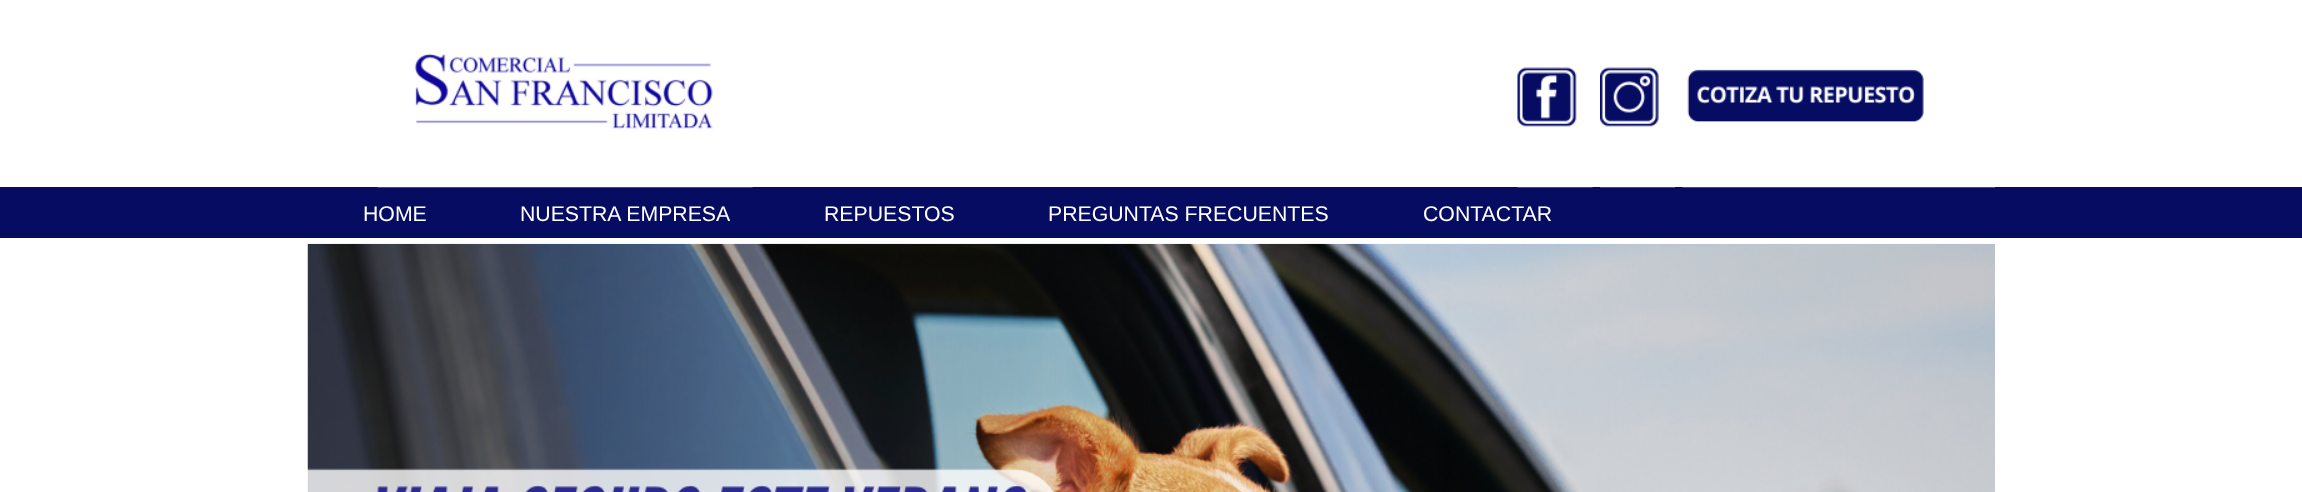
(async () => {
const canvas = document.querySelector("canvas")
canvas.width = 2302
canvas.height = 492
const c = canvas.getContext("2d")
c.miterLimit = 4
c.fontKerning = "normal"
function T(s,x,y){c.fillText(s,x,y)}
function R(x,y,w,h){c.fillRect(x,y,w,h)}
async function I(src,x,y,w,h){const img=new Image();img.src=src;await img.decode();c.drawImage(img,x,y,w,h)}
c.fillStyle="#fff"
R(0,0,2302,492)
c.fillStyle="#050c62"
R(0,187,2302,51)
await I("1.png",377,53,376,135)
await I("2.png",1517,67,76,121)
await I("3.png",1600,67,75,121)
await I("4.png",1682,69,313,119)
c.font="21.25px Liberation Sans"
c.fillStyle="#fff"
T("HOME",363,221)
T("NUESTRA EMPRESA",520,221)
T("REPUESTOS",824,221)
T("PREGUNTAS FRECUENTES",1048,221)
T("CONTACTAR",1423,221)
await I("5.png",307,243,1688,249)
})()
